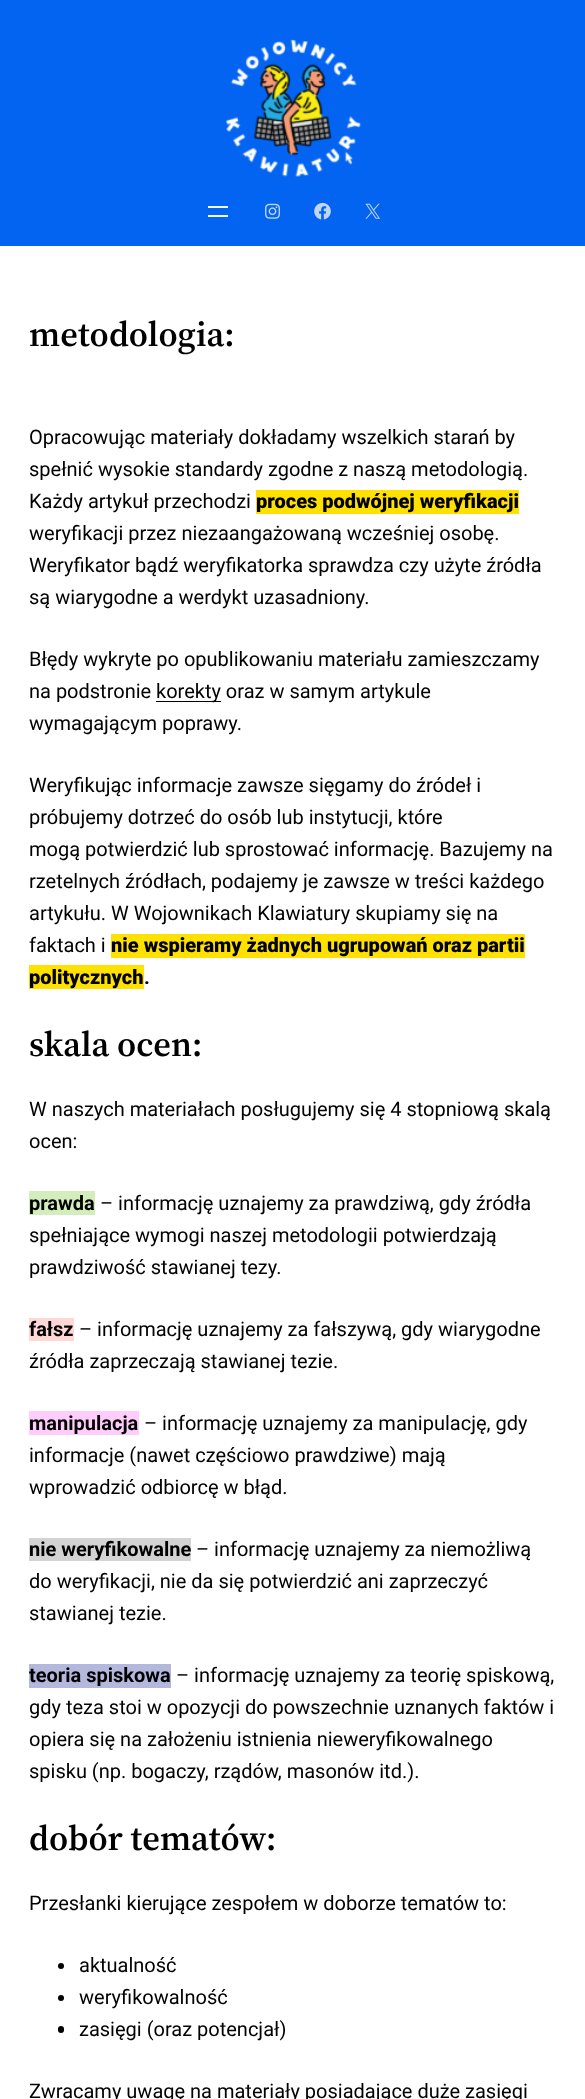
(async () => {
const canvas = document.querySelector("canvas")
canvas.width = 585
canvas.height = 2099
const c = canvas.getContext("2d")
c.miterLimit = 4
c.fontKerning = "normal"
function T(s,x,y){c.fillText(s,x,y)}
function R(x,y,w,h){c.fillRect(x,y,w,h)}
function Q(x,y,w,h,r){c.beginPath();c.roundRect(x,y,w,h,r);c.fill()}
async function I(src,x,y,w,h){const img=new Image();img.src=src;await img.decode();c.drawImage(img,x,y,w,h)}
c.fillStyle="#fff"
R(0,0,585,2099)
c.fillStyle="#0364f1"
R(0,0,585,246)
await I("1.png",226,39,135,138)
c.fillStyle="#f6f6f6"
R(208,206,20,2)
R(208,215,20,2)
await I("2.png",265,203,15,16)
await I("3.png",314,202,17,18)
await I("4.png",365,203,15,16)
c.font="600 35px 'Source Serif 4'"
c.fillStyle="#000"
T("metodologia:",29,346)
c.font="20px Roboto"
T("Opracowując materiały dokładamy wszelkich starań by",29,444)
T("spełnić wysokie standardy zgodne z naszą metodologią.",29,476)
T("Każdy artykuł przechodzi",29,508)
c.fillStyle="#ffe100"
R(256,490,263,24)
c.font="900 20px Roboto"
c.fillStyle="#000"
T("proces podwójnej weryfikacji",256,508)
c.font="20px Roboto"
T("weryfikacji przez niezaangażowaną wcześniej osobę.",29,540)
T("Weryfikator bądź weryfikatorka sprawdza czy użyte źródła",29,572)
T("są wiarygodne a werdykt uzasadniony.",29,604)
T("Błędy wykryte po opublikowaniu materiału zamieszczamy",29,666)
T("na podstronie",29,698)
R(156,701,65,1)
T("korekty oraz w samym artykule",156,698)
T("wymagającym poprawy.",29,730)
T("Weryfikując informacje zawsze sięgamy do źródeł i",29,792)
T("próbujemy dotrzeć do osób lub instytucji, które",29,824)
T("mogą potwierdzić lub sprostować informację. Bazujemy na",29,856)
T("rzetelnych źródłach, podajemy je zawsze w treści każdego",29,888)
T("artykułu. W Wojownikach Klawiatury skupiamy się na",29,920)
T("faktach i",29,952)
c.fillStyle="#ffe100"
R(111,934,414,24)
c.font="900 20px Roboto"
c.fillStyle="#000"
T("nie wspieramy żadnych ugrupowań oraz partii",111,952)
c.fillStyle="#ffe100"
R(29,965,115,24)
c.fillStyle="#000"
T("politycznych",29,984)
c.font="bold 20px Roboto"
T(".",144,984)
c.font="600 35px 'Source Serif 4'"
T("skala ocen:",29,1056)
c.font="20px Roboto"
T("W naszych materiałach posługujemy się 4 stopniową skalą",29,1116)
T("ocen:",29,1148)
c.fillStyle="#d3edbd"
R(29,1191,66,24)
c.font="bold 20px Roboto"
c.fillStyle="#000"
T("prawda",29,1210)
c.font="20px Roboto"
T("– informację uznajemy za prawdziwą, gdy źródła",100,1210)
T("spełniające wymogi naszej metodologii potwierdzają",29,1242)
T("prawdziwość stawianej tezy.",29,1274)
c.fillStyle="#ffd7d7"
R(29,1318,45,23)
c.font="bold 20px Roboto"
c.fillStyle="#000"
T("fałsz",29,1336)
c.font="20px Roboto"
T("– informację uznajemy za fałszywą, gdy wiarygodne",79,1336)
T("źródła zaprzeczają stawianej tezie.",29,1368)
c.fillStyle="#ffcdfc"
R(29,1411,110,24)
c.font="bold 20px Roboto"
c.fillStyle="#000"
T("manipulacja",29,1430)
c.font="20px Roboto"
T("– informację uznajemy za manipulację, gdy",144,1430)
T("informacje (nawet częściowo prawdziwe) mają",29,1462)
T("wprowadzić odbiorcę w błąd.",29,1494)
c.fillStyle="#d3d3d3"
R(29,1538,162,23)
c.font="bold 20px Roboto"
c.fillStyle="#000"
T("nie weryfikowalne",29,1556)
c.font="20px Roboto"
T("– informację uznajemy za niemożliwą",196,1556)
T("do weryfikacji, nie da się potwierdzić ani zaprzeczyć",29,1588)
T("stawianej tezie.",29,1620)
c.fillStyle="#b4b8dd"
R(29,1664,142,24)
c.font="bold 20px Roboto"
c.fillStyle="#000"
T("teoria spiskowa",29,1682)
c.font="20px Roboto"
T("– informację uznajemy za teorię spiskową,",176,1682)
T("gdy teza stoi w opozycji do powszechnie uznanych faktów i",29,1714)
T("opiera się na założeniu istnienia nieweryfikowalnego",29,1746)
T("spisku (np. bogaczy, rządów, masonów itd.).",29,1778)
c.font="600 35px 'Source Serif 4'"
T("dobór tematów:",29,1850)
c.font="20px Roboto"
T("Przesłanki kierujące zespołem w doborze tematów to:",29,1910)
c.beginPath()
c.arc(61,1966,3,0,7)
c.fill()
T("aktualność",79,1972)
c.beginPath()
c.arc(61,1998,3,0,7)
c.fill()
T("weryfikowalność",79,2004)
Q(58,2026,6,7,3)
T("zasięgi (oraz potencjał)",79,2036)
T("Zwracamy uwagę na materiały posiadające duże zasięgi",29,2098)
})()
